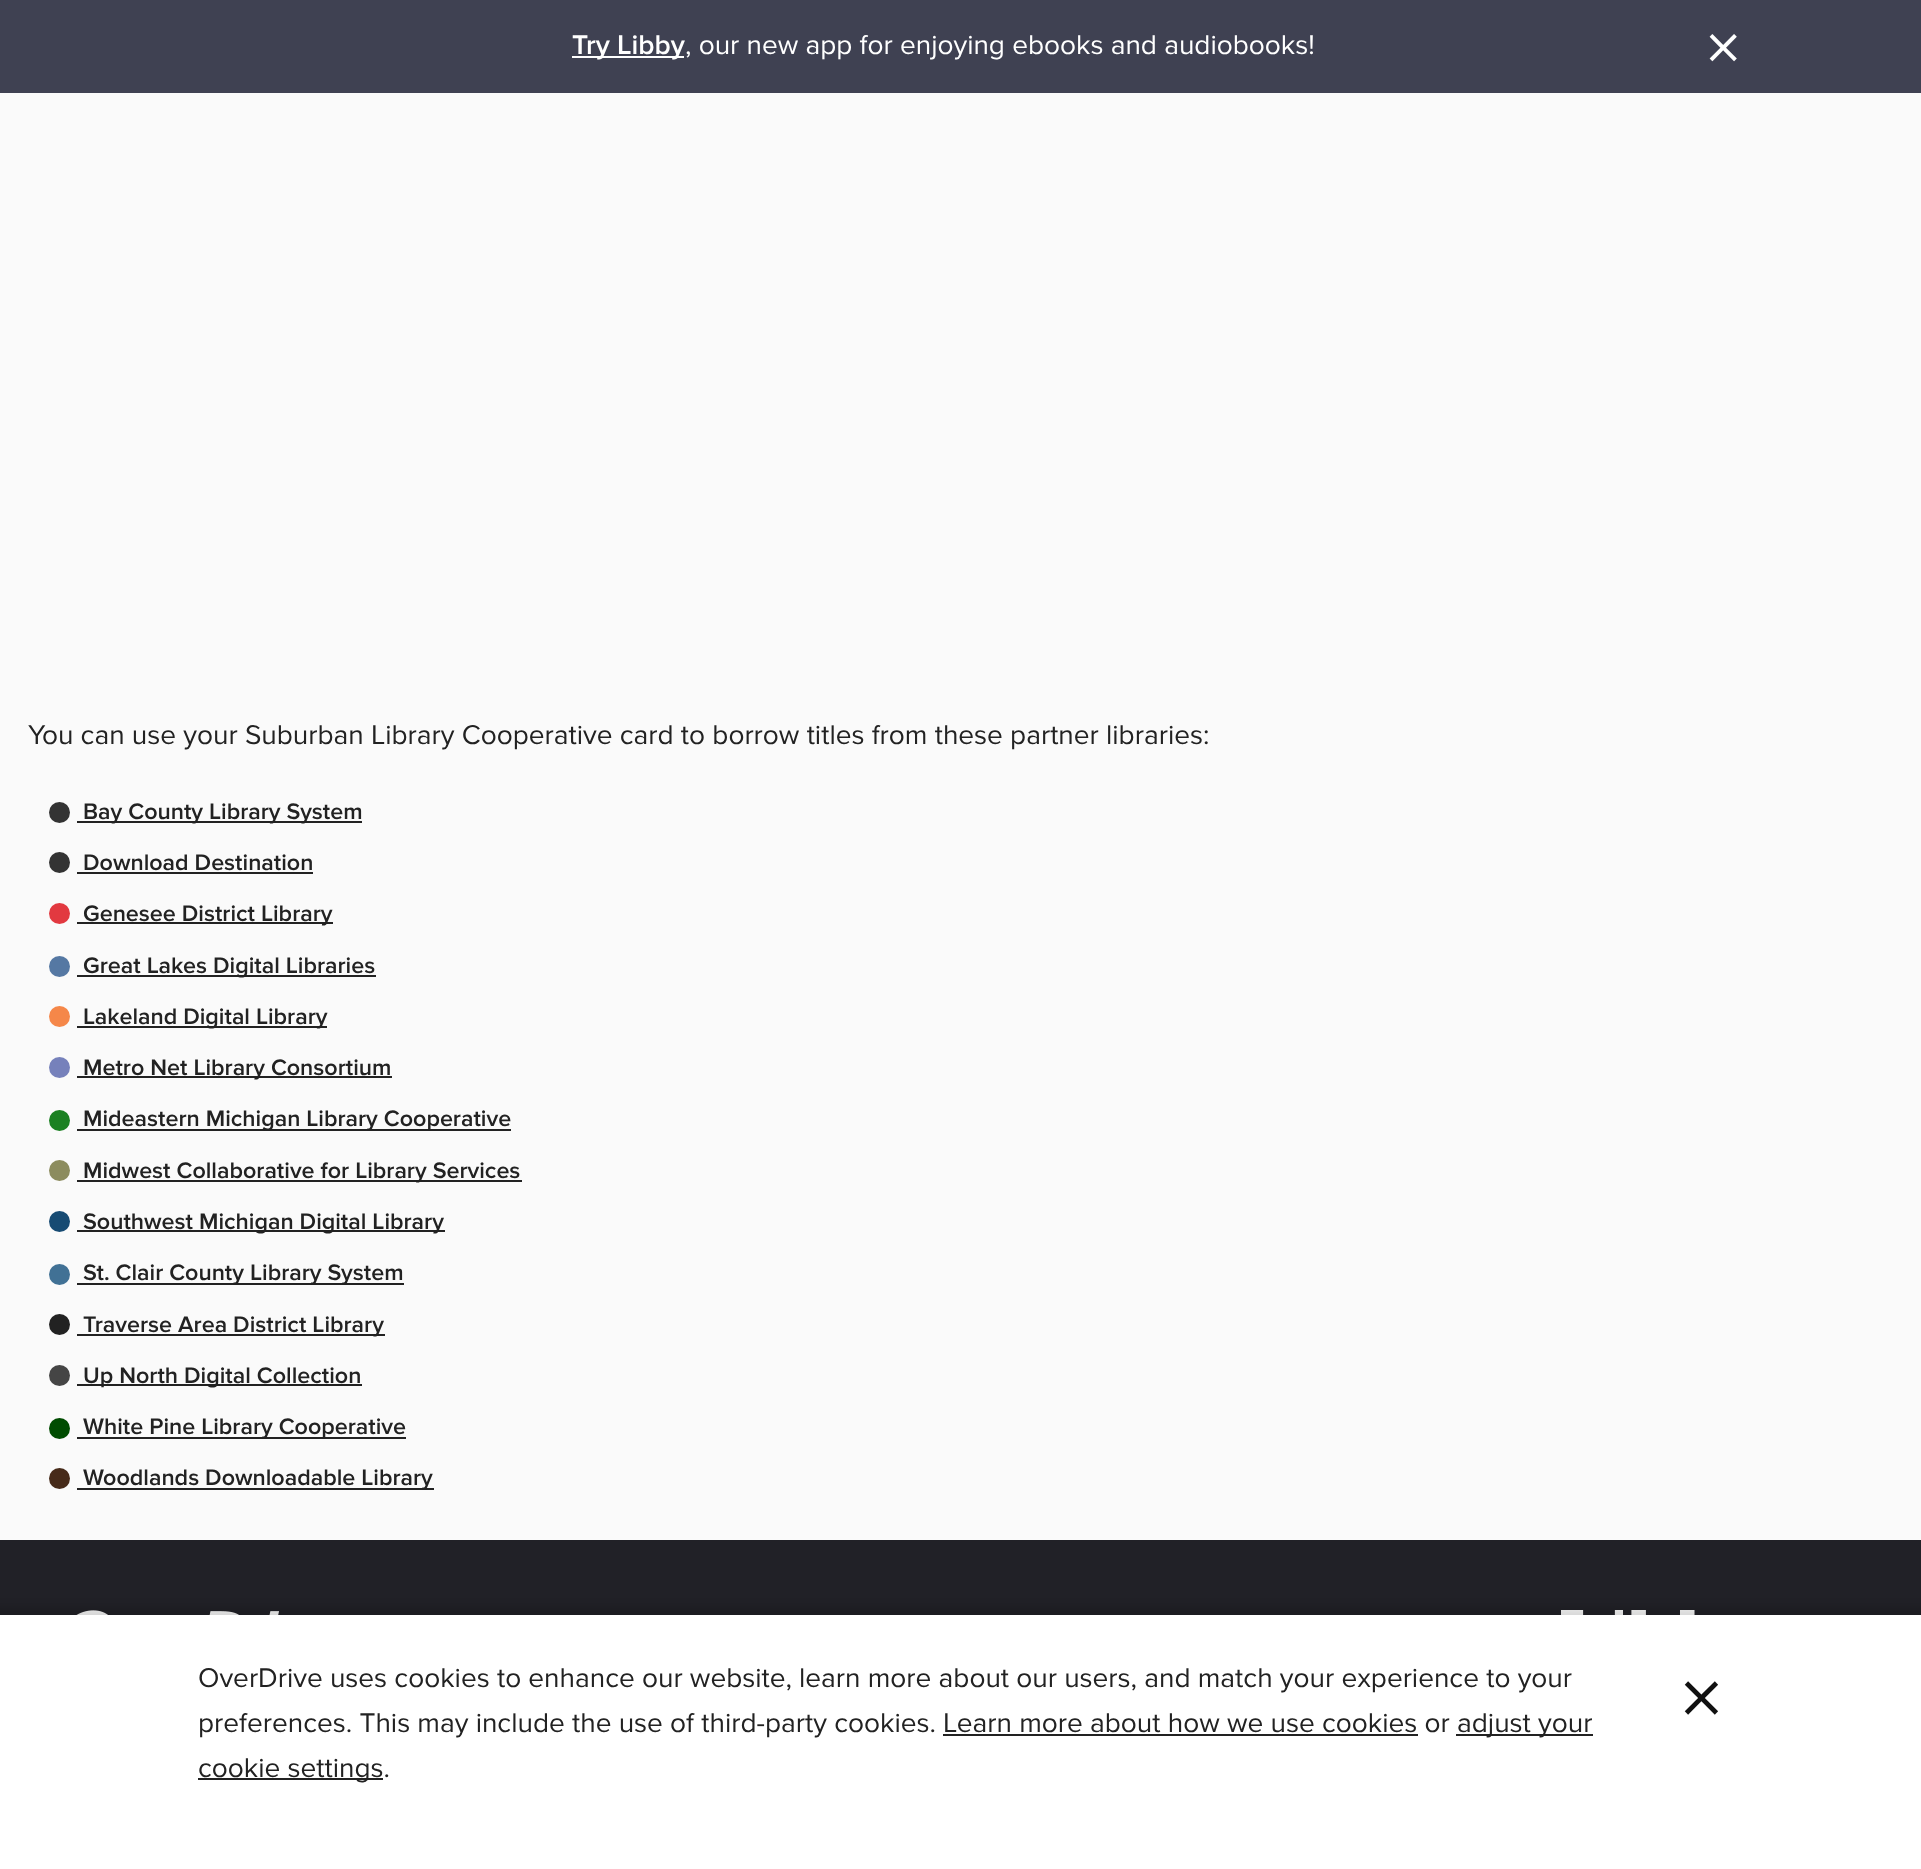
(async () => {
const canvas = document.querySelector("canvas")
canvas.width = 1921
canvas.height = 1869
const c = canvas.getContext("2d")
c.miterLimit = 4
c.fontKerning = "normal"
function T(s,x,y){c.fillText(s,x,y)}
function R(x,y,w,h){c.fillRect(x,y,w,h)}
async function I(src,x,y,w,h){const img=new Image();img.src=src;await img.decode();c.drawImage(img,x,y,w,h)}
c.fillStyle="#fafafa"
R(0,0,1921,1869)
c.fillStyle="#3f4152"
R(0,0,1921,93)
c.fillStyle="#fff"
R(572,56,112,2)
c.font="600 28px Proxima Nova"
T("Try Libby",572,54)
c.font="28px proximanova"
T(", our new app for enjoying ebooks and audiobooks!",685,54)
c.font="73px proximanova"
T("×",1705,72)
c.font="28px proximanova"
c.fillStyle="#222"
T("You can use your Suburban Library Cooperative card to borrow titles from these partner libraries:",28,744)
c.fillStyle="#333"
c.beginPath()
c.arc(59.5,812.5,10.5,0,7)
c.fill()
c.fillStyle="#222"
R(77,821,285,2)
c.font="600 23.3px Proxima Nova"
T("Bay County Library System",83,819)
c.fillStyle="#333"
c.beginPath()
c.arc(59.5,862.5,10.5,0,7)
c.fill()
c.fillStyle="#222"
T("Download Destination",83,870)
R(77,872,236,2)
c.fillStyle="#e23940"
c.beginPath()
c.arc(59.5,913.5,10.5,0,7)
c.fill()
c.fillStyle="#222"
R(77,922,256,2)
T("Genesee District Library",83,921)
c.fillStyle="#5578a3"
c.beginPath()
c.arc(59.5,966.5,10.5,0,7)
c.fill()
c.fillStyle="#222"
R(77,975,299,2)
T("Great Lakes Digital Libraries",83,973)
c.fillStyle="#f58749"
c.beginPath()
c.arc(59.5,1016.5,10.5,0,7)
c.fill()
c.fillStyle="#222"
R(77,1026,250,2)
T("Lakeland Digital Library",83,1024)
c.fillStyle="#7681bb"
c.beginPath()
c.arc(59.5,1067.5,10.5,0,7)
c.fill()
c.fillStyle="#222"
R(77,1076,315,2)
T("Metro Net Library Consortium",83,1075)
c.fillStyle="#1b8122"
c.beginPath()
c.arc(59.5,1120.5,10.5,0,7)
c.fill()
c.fillStyle="#222"
R(77,1129,434,2)
T("Mideastern Michigan Library Cooperative",83,1126)
c.fillStyle="#8c8c5e"
c.beginPath()
c.arc(59.5,1170.5,10.5,0,7)
c.fill()
c.fillStyle="#222"
R(77,1180,445,2)
T("Midwest Collaborative for Library Services",83,1178)
c.fillStyle="#174b73"
c.beginPath()
c.arc(59.5,1221.5,10.5,0,7)
c.fill()
c.fillStyle="#222"
R(77,1230,368,2)
T("Southwest Michigan Digital Library",83,1229)
c.fillStyle="#417195"
c.beginPath()
c.arc(59.5,1274.5,10.5,0,7)
c.fill()
c.fillStyle="#222"
R(77,1283,327,2)
T("St. Clair County Library System",83,1280)
c.beginPath()
c.arc(59.5,1324.5,10.5,0,7)
c.fill()
R(77,1334,308,2)
T("Traverse Area District Library",83,1332)
c.fillStyle="#454545"
c.beginPath()
c.arc(59.5,1375.5,10.5,0,7)
c.fill()
c.fillStyle="#222"
R(77,1384,285,2)
T("Up North Digital Collection",83,1383)
c.fillStyle="#004c01"
c.beginPath()
c.arc(59.5,1428.5,10.5,0,7)
c.fill()
c.fillStyle="#222"
R(77,1437,329,2)
T("White Pine Library Cooperative",83,1434)
c.fillStyle="#472b1a"
c.beginPath()
c.arc(59.5,1478.5,10.5,0,7)
c.fill()
c.fillStyle="#222"
R(77,1488,357,2)
T("Woodlands Downloadable Library",83,1485)
c.fillStyle="#212127"
R(0,1540,1921,75)
await I("1.png",76,1610,203,5)
await I("2.png",1561,1610,134,5)
c.fillStyle="#00000026"
c.filter="blur(4.5px)"
c.beginPath()
c.rect(-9,1607,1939,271)
c.fill()
c.filter="none"
c.fillStyle="#fff"
R(0,1615,1921,254)
c.font="28px proximanova"
c.fillStyle="#222"
T("OverDrive uses cookies to enhance our website, learn more about our users, and match your experience to your",198,1687)
T("preferences. This may include the use of third-party cookies. Learn more about how we use cookies or",198,1732)
R(943,1734,475,2)
R(1456,1734,137,2)
T("adjust your",1457,1732)
R(198,1778,185,2)
T("cookie settings.",198,1777)
c.font="90px proximanova"
c.fillStyle="#111"
T("×",1679,1728)
})()
